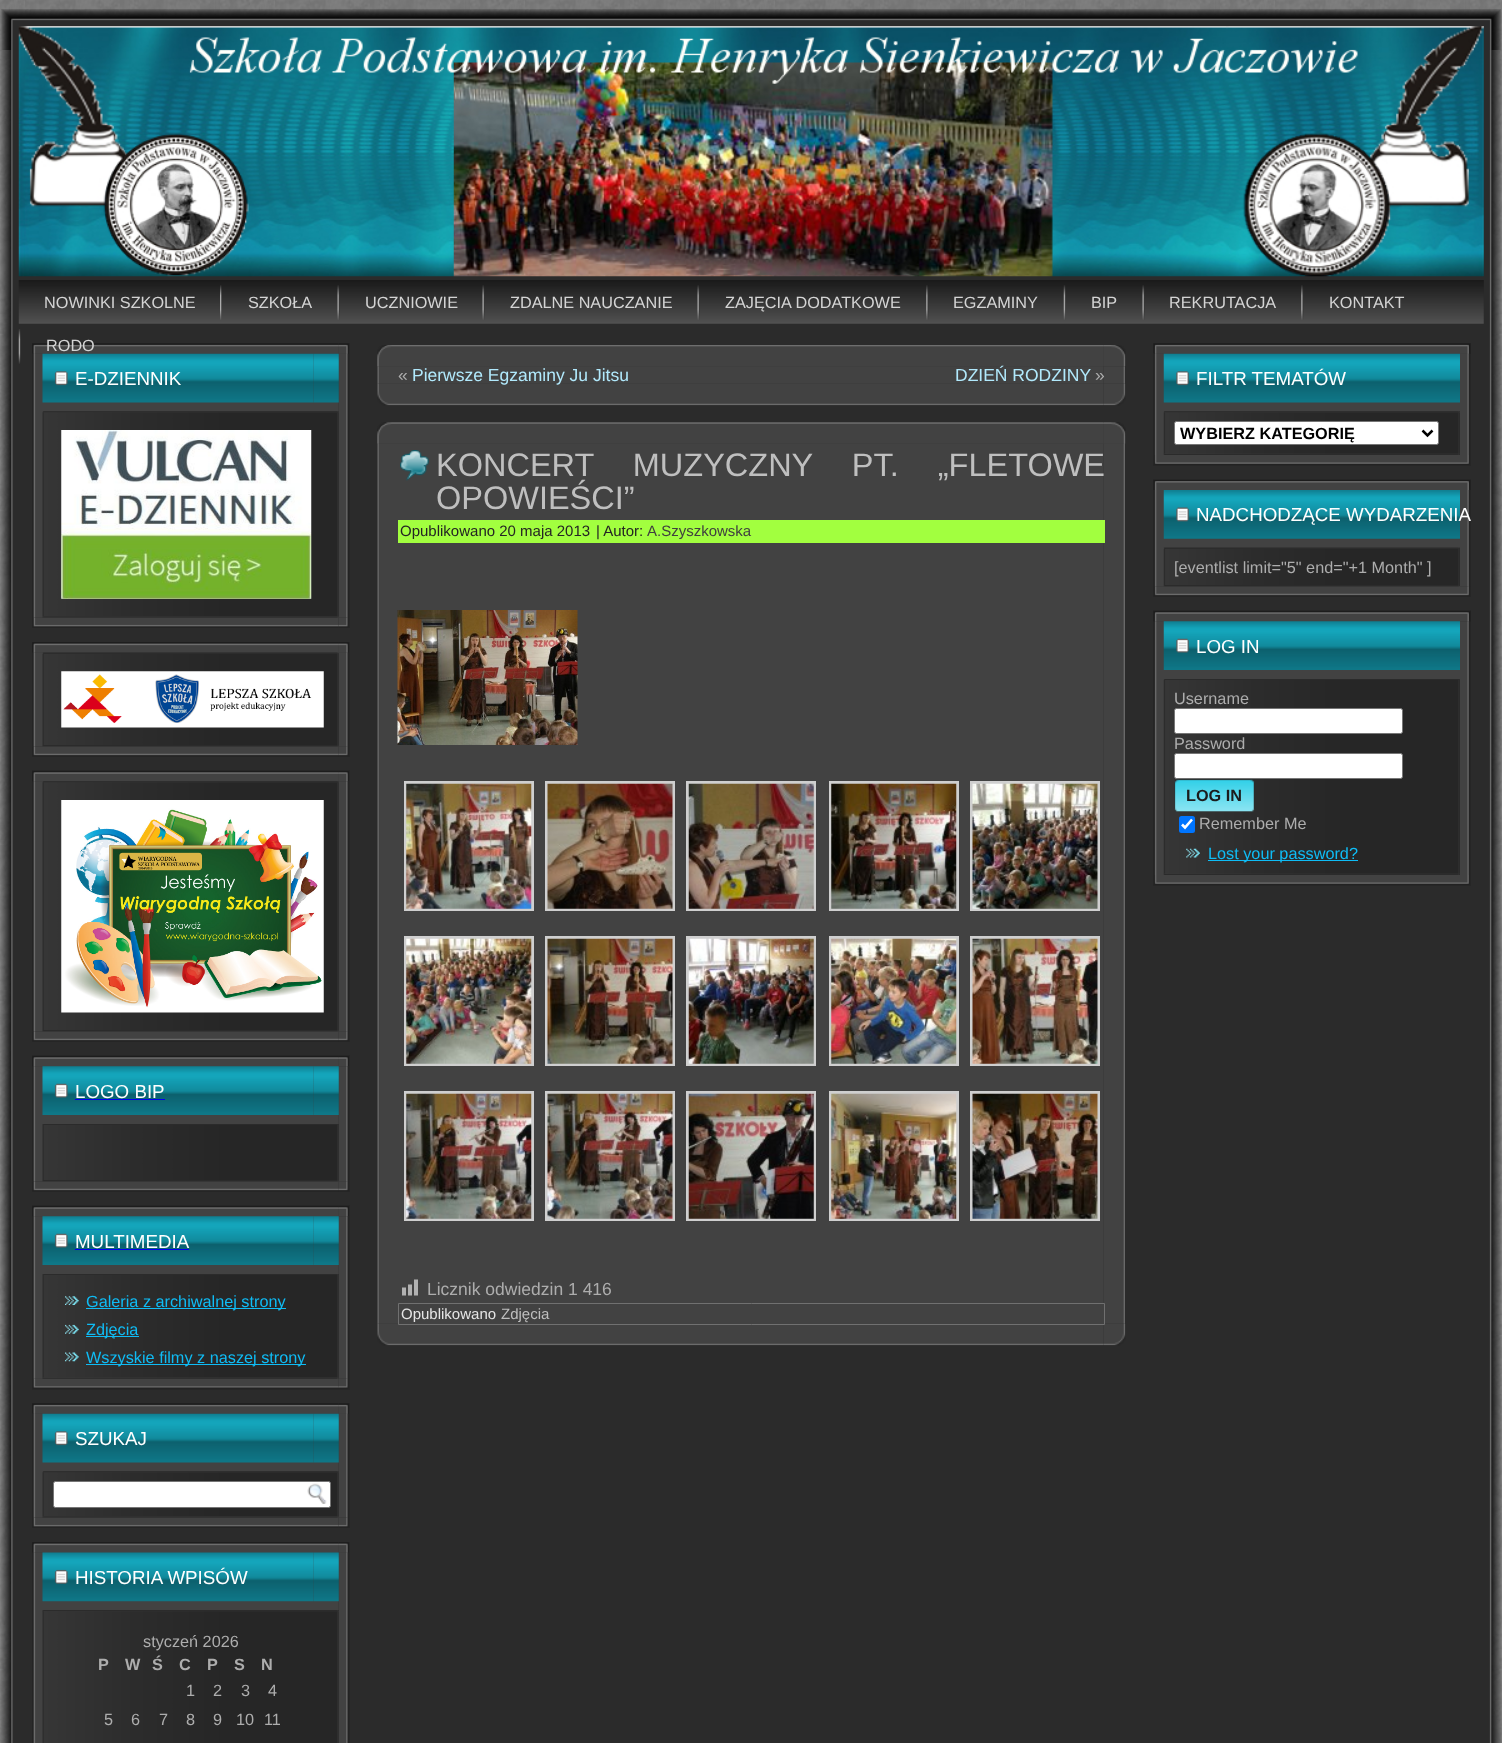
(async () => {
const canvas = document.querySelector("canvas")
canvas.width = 1502
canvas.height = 1743
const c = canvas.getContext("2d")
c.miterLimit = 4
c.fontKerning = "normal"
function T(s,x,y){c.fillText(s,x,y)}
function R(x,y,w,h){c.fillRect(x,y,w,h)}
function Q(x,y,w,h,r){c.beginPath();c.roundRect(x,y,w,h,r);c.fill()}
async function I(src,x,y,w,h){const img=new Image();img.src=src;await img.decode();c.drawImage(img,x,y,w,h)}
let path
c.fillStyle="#fff"
R(0,0,1502,1743)
await I("1.png",0,0,1502,1743)
await I("2.png",1,9,1459,41)
await I("3.png",1,9,1459,41)
await I("4.png",1460,9,41,41)
await I("5.png",1460,9,41,41)
await I("7.png",1,50,1459,1693)
await I("8.png",1460,50,41,1693)
await I("6.png",18,26,1466,251)
await I("9.png",18,280,1466,44)
c.font="16.25px Liberation Sans"
c.fillStyle="#d4d4d4"
T("NOWINKI SZKOLNE",44,308)
await I("10.png",220,285,2,35)
T("SZKOŁA",248,308)
await I("11.png",337,285,3,35)
T("UCZNIOWIE",365,308)
await I("11.png",482,285,3,35)
T("ZDALNE NAUCZANIE",510,308)
await I("11.png",697,285,3,35)
T("ZAJĘCIA DODATKOWE",725,308)
await I("12.png",926,285,3,35)
T("EGZAMINY",953,308)
await I("13.png",1063,285,3,35)
T("BIP",1091,308)
await I("11.png",1142,285,3,35)
T("REKRUTACJA",1169,308)
await I("12.png",1301,285,3,35)
T("KONTAKT",1329,308)
await I("14.png",18,329,3,35)
await I("15.png",32,343,307,285)
await I("16.png",32,343,307,11)
T("RODO",46,351)
await I("20.png",339,353,11,265)
await I("17.png",339,343,11,285)
await I("18.png",339,343,10,11)
await I("19.png",32,354,307,264)
await I("21.png",42,353,272,50)
await I("22.png",313,353,26,50)
c.font="18.75px Liberation Sans"
c.fillStyle="#fff"
T("E-DZIENNIK",75,385)
await I("23.png",42,411,296,207)
await I("24.png",43,411,295,2)
await I("26.png",42,412,296,204)
await I("28.png",337,412,2,204)
await I("25.png",337,411,2,206)
c.fillStyle="#333"
R(338,411,1,1)
await I("27.png",61,430,251,169)
await I("29.png",32,642,307,115)
await I("30.png",32,642,307,11)
await I("33.png",32,652,307,94)
await I("40.png",339,652,11,95)
await I("31.png",338,642,12,115)
await I("32.png",339,642,10,11)
await I("34.png",42,652,296,95)
await I("35.png",43,652,295,2)
await I("37.png",42,654,296,91)
await I("39.png",337,654,2,91)
await I("36.png",337,653,2,93)
c.fillStyle="#313131"
R(338,653,1,1)
await I("38.png",61,671,263,57)
await I("41.png",32,770,307,272)
await I("42.png",32,771,307,11)
await I("45.png",32,781,307,250)
await I("52.png",339,781,11,251)
await I("43.png",338,770,12,272)
await I("44.png",339,771,10,10)
await I("46.png",42,781,296,251)
await I("47.png",43,781,295,2)
await I("49.png",42,782,296,248)
await I("51.png",337,782,2,248)
await I("48.png",337,781,2,250)
await I("50.png",61,800,263,213)
await I("53.png",32,1055,307,137)
await I("42.png",32,1056,307,11)
await I("55.png",32,1066,307,115)
await I("56.png",339,1066,11,116)
await I("54.png",338,1055,12,137)
await I("44.png",339,1056,10,10)
await I("57.png",42,1066,272,49)
await I("58.png",313,1066,26,49)
c.fillStyle="#fff"
T("LOGO BIP",75,1098)
c.fillStyle="#00e"
R(75,1099,90,1)
await I("59.png",42,1124,296,58)
await I("60.png",42,1124,296,1)
await I("62.png",42,1125,296,55)
await I("63.png",337,1125,2,55)
await I("61.png",337,1124,2,57)
c.fillStyle="#2e2e2e"
R(338,1124,1,1)
await I("64.png",32,1205,307,185)
await I("42.png",32,1206,307,11)
await I("66.png",32,1216,307,163)
await I("67.png",339,1216,11,163)
await I("65.png",338,1205,12,185)
await I("44.png",339,1206,10,10)
await I("57.png",42,1216,272,49)
await I("58.png",313,1216,26,49)
c.fillStyle="#fff"
T("MULTIMEDIA",75,1248)
c.fillStyle="#00e"
R(75,1249,114,1)
await I("68.png",42,1274,296,105)
await I("60.png",42,1274,296,1)
await I("70.png",42,1275,296,103)
await I("74.png",337,1275,2,103)
await I("69.png",338,1377,1,2)
c.fillStyle="#2e2e2e"
R(338,1274,1,1)
await I("71.png",65,1296,14,9)
c.fillStyle="#0fbcf5"
R(86,1308,200,1)
c.font="16.25px Liberation Sans"
T("Galeria z archiwalnej strony",86,1307)
await I("72.png",65,1324,14,10)
R(86,1336,53,1)
T("Zdjęcia",86,1335)
await I("73.png",65,1352,14,10)
R(86,1364,220,1)
T("Wszyskie filmy z naszej strony",86,1363)
await I("75.png",32,1403,307,125)
await I("16.png",32,1403,307,11)
await I("78.png",339,1413,11,105)
await I("76.png",339,1403,11,125)
await I("18.png",339,1403,10,11)
await I("77.png",32,1414,307,104)
await I("21.png",42,1413,272,50)
await I("22.png",313,1413,26,50)
c.font="18.75px Liberation Sans"
c.fillStyle="#fff"
T("SZUKAJ",75,1445)
await I("79.png",42,1471,296,47)
await I("24.png",43,1471,295,2)
await I("81.png",42,1472,296,44)
await I("83.png",337,1472,2,44)
await I("80.png",337,1471,2,46)
c.fillStyle="#333"
R(338,1471,1,1)
c.fillStyle="#fff"
c.beginPath()
c.roundRect(53.5,1481.5,277,26,2)
c.fill()
c.strokeStyle="#767676"
c.stroke()
await I("82.png",307,1483,20,21)
await I("84.png",32,1542,307,11)
await I("30.png",32,1542,307,11)
await I("87.png",339,1552,11,191)
await I("85.png",339,1542,11,11)
await I("32.png",339,1542,10,11)
await I("86.png",32,1552,307,191)
await I("88.png",42,1552,272,50)
await I("89.png",313,1552,26,50)
T("HISTORIA WPISÓW",75,1584)
await I("90.png",42,1610,296,2)
await I("91.png",42,1610,296,2)
c.fillStyle="#2e2e2e"
R(338,1610,1,1)
await I("92.png",42,1611,296,132)
c.font="16.25px Liberation Sans"
c.fillStyle="#adadad"
T("styczeń 2026",143,1647)
c.font="bold 16.25px Liberation Sans"
T("P",98,1670)
T("W",125,1670)
T("Ś",152,1670)
T("C",179,1670)
T("P",207,1670)
T("S",234,1670)
T("N",261,1670)
c.font="16.25px Liberation Sans"
T("1",186,1696)
T("2",213,1696)
T("3",241,1696)
T("4",268,1696)
T("5",104,1725)
T("6",131,1725)
T("7",159,1725)
T("8",186,1725)
T("9",213,1725)
T("10",236,1725)
T("11",264,1725)
await I("93.png",337,1611,2,132)
await I("94.png",377,345,727,61)
await I("95.png",377,345,727,22)
await I("98.png",377,366,727,18)
await I("99.png",1104,366,21,18)
await I("96.png",1103,345,23,61)
await I("97.png",1104,345,22,21)
c.font="17.5px Liberation Sans"
T("«",398,381)
c.fillStyle="#b1e9fc"
T("Pierwsze Egzaminy Ju Jitsu",412,381)
T("DZIEŃ RODZINY",955,381)
c.fillStyle="#adadad"
T("»",1095,381)
await I("100.png",377,422,727,924)
await I("101.png",377,422,727,22)
await I("104.png",377,444,727,880)
await I("105.png",1104,443,21,881)
await I("102.png",1103,422,23,924)
await I("103.png",1104,422,22,22)
await I("106.png",400,450,29,31)
c.wordSpacing="30px"
c.font="32.5px Liberation Sans"
c.fillStyle="#bfbfbf"
T("KONCERT MUZYCZNY PT. „FLETOWE",436,476)
c.wordSpacing="0px"
T("OPOWIEŚCI”",436,509)
c.fillStyle="#a2ff3f"
R(398,520,707,23)
c.font="15px Liberation Sans"
c.fillStyle="#242424"
T("Opublikowano 20 maja 2013",400,536)
T("| Autor:",596,536)
c.fillStyle="#404040"
T("A.Szyszkowska",647,536)
await I("107.png",397,610,181,135)
c.strokeStyle="#cfcfcf"
c.lineWidth=3
c.strokeRect(405.5,782.5,127,127)
await I("108.png",406,783,126,126)
c.strokeRect(546.5,782.5,127,127)
await I("109.png",547,783,126,126)
c.strokeRect(687.5,782.5,127,127)
await I("110.png",688,783,126,126)
c.strokeRect(830.5,782.5,127,127)
await I("111.png",831,783,126,126)
c.strokeRect(971.5,782.5,127,127)
await I("112.png",972,783,126,126)
c.strokeRect(405.5,937.5,127,127)
await I("113.png",406,938,126,126)
c.strokeRect(546.5,937.5,127,127)
await I("114.png",547,938,126,126)
c.strokeRect(687.5,937.5,127,127)
await I("115.png",688,938,126,126)
c.strokeRect(830.5,937.5,127,127)
await I("116.png",831,938,126,126)
c.strokeRect(971.5,937.5,127,127)
await I("117.png",972,938,126,126)
c.strokeRect(405.5,1092.5,127,127)
await I("118.png",406,1093,126,126)
c.strokeRect(546.5,1092.5,127,127)
await I("119.png",547,1093,126,126)
c.strokeRect(687.5,1092.5,127,127)
await I("120.png",688,1093,126,126)
c.strokeRect(830.5,1092.5,127,127)
await I("121.png",831,1093,126,126)
c.strokeRect(971.5,1092.5,127,127)
await I("122.png",972,1093,126,126)
await I("123.png",402,1279,16,17)
c.font="17.5px Liberation Sans"
c.fillStyle="#adadad"
T("Licznik odwiedzin 1 416",427,1295)
c.fillStyle="#424242"
c.beginPath()
c.rect(398.5,1303.5,706,21)
c.fill()
c.strokeStyle="#707070"
c.lineWidth=1
c.stroke()
c.font="15px Liberation Sans"
c.fillStyle="#e5e5e5"
T("Opublikowano",401,1319)
c.fillStyle="#bfbfbf"
T("Zdjęcia",501,1319)
await I("124.png",1153,343,307,123)
await I("125.png",1153,343,307,11)
await I("129.png",1460,353,11,102)
await I("126.png",1460,343,11,123)
await I("127.png",1460,343,11,11)
await I("128.png",1153,354,307,101)
await I("130.png",1163,353,272,50)
await I("131.png",1435,353,25,50)
c.font="18.75px Liberation Sans"
c.fillStyle="#fff"
T("FILTR TEMATÓW",1196,385)
await I("132.png",1163,411,296,44)
await I("133.png",1164,411,295,2)
await I("136.png",1459,412,1,42)
await I("134.png",1459,412,1,43)
c.fillStyle="#303030"
R(1459,411,1,1)
await I("135.png",1163,412,296,42)
c.fillStyle="#fff"
c.beginPath()
c.roundRect(1174.5,421.5,264,23,2)
c.fill()
c.strokeStyle="#767676"
c.stroke()
path = new Path2D("M1422.5 430.5l5 5l5-5")
c.strokeStyle="#000"
c.lineWidth=2.5
c.stroke(path)
c.font="bold 16.25px Liberation Sans"
c.fillStyle="#000"
T("WYBIERZ KATEGORIĘ",1180,439)
await I("137.png",1153,479,307,118)
await I("138.png",1153,480,307,10)
await I("142.png",1460,490,11,97)
await I("139.png",1460,479,11,118)
await I("140.png",1460,480,11,10)
await I("141.png",1153,490,307,97)
await I("143.png",1163,490,272,49)
await I("144.png",1435,490,25,49)
c.font="18.75px Liberation Sans"
c.fillStyle="#fff"
T("NADCHODZĄCE WYDARZENIA",1196,521)
await I("145.png",1163,547,296,40)
await I("146.png",1164,547,295,2)
await I("150.png",1459,548,1,37)
await I("147.png",1459,547,1,39)
await I("148.png",1459,547,1,2)
await I("149.png",1163,549,296,36)
c.font="16.25px Liberation Sans"
c.fillStyle="#adadad"
T("[eventlist limit=\"5\" end=\"+1 Month\" ]",1174,573)
await I("151.png",1153,610,307,276)
await I("152.png",1153,611,307,11)
await I("156.png",1460,621,11,254)
await I("153.png",1460,610,11,276)
await I("154.png",1460,611,11,11)
await I("155.png",1153,621,307,254)
await I("157.png",1163,621,272,49)
await I("158.png",1435,621,25,49)
c.font="18.75px Liberation Sans"
c.fillStyle="#fff"
T("LOG IN",1196,653)
await I("159.png",1163,679,296,196)
c.fillStyle="#2c2c2c"
R(1458,679,1,1)
await I("162.png",1459,680,1,194)
await I("160.png",1459,679,1,196)
await I("161.png",1163,680,296,194)
c.font="16.25px Liberation Sans"
c.fillStyle="#adadad"
T("Username",1174,704)
c.fillStyle="#fff"
c.beginPath()
c.roundRect(1174.5,708.5,228,25,2)
c.fill()
c.strokeStyle="#767676"
c.lineWidth=1
c.stroke()
c.fillStyle="#adadad"
T("Password",1174,749)
c.fillStyle="#fff"
c.beginPath()
c.roundRect(1174.5,753.5,228,25,2)
c.fill()
c.stroke()
await I("163.png",1174,778,76,34)
await I("164.png",1250,778,5,34)
c.font="bold 16.25px Liberation Sans"
c.fillStyle="#1c1c1c"
T("LOG IN",1186,801)
c.fillStyle="#0075ff"
Q(1179,816,16,17,2.5)
path = new Path2D("M1182 824.5l3 3l7-8")
c.strokeStyle="#fff"
c.lineWidth=2.6
c.stroke(path)
c.font="16.25px Liberation Sans"
c.fillStyle="#adadad"
T("Remember Me",1199,829)
await I("165.png",1186,848,14,10)
c.fillStyle="#0fbcf5"
R(1208,860,150,1)
T("Lost your password?",1208,859)
})()
